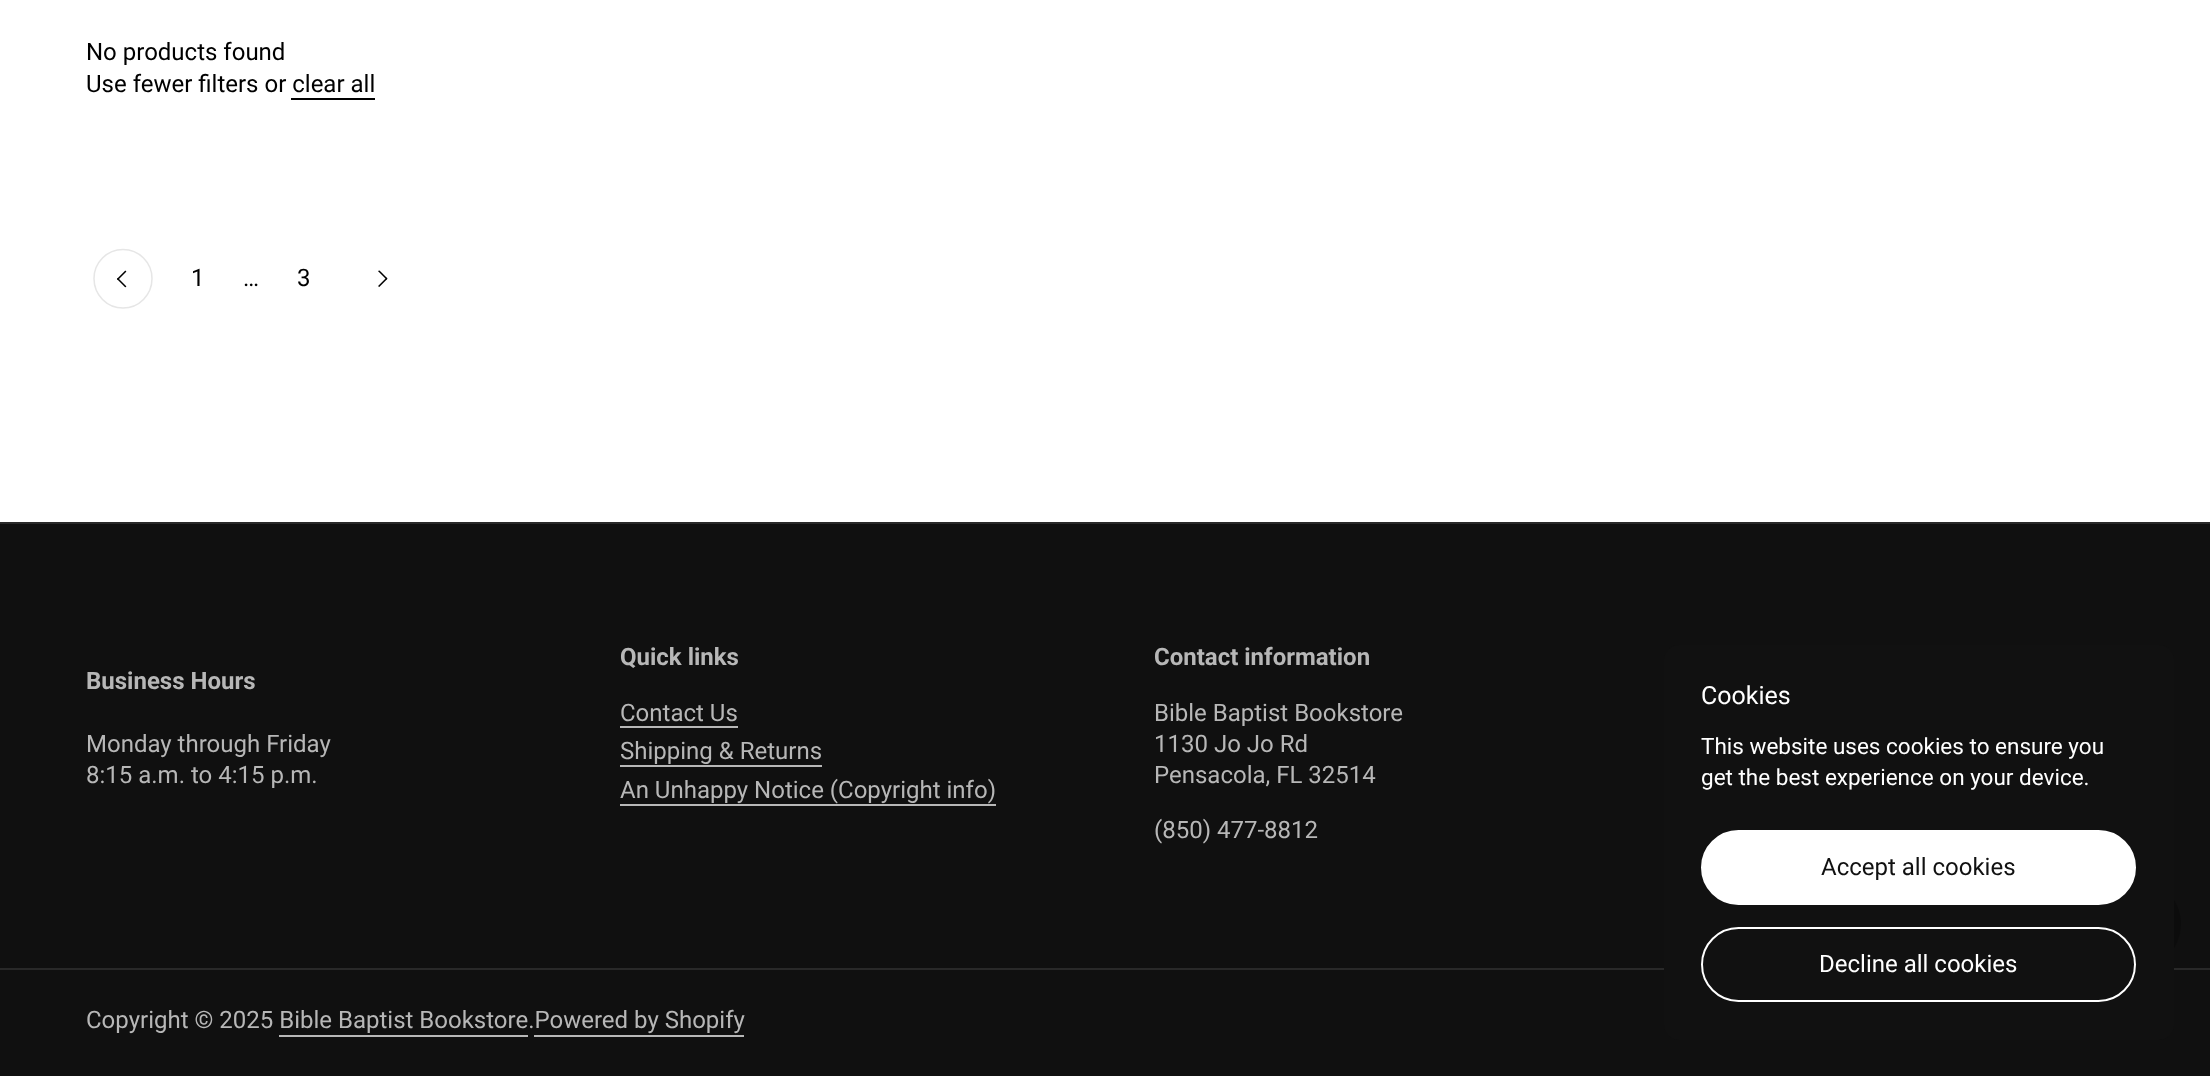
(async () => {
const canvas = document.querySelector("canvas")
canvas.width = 2210
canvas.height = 1076
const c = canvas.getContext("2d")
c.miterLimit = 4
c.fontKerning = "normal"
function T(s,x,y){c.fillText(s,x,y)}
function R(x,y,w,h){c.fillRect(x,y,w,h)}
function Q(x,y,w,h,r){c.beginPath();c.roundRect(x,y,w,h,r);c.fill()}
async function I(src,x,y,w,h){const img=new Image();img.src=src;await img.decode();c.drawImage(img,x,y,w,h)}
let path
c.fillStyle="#fff"
R(0,0,2210,1076)
c.font="24px Roboto"
c.fillStyle="#000"
T("No products found",86,60)
T("Use fewer filters or clear all",86,92)
R(291,98,84,2)
path = new Path2D("M152 278.5c0 16.5-13 29.5-29 29.5c-16 0-29-13-29-29.5c0-16 13-29 29-29c16 0 29 13 29 29z")
c.strokeStyle="#e6e6e6"
c.lineWidth=1.5
c.stroke(path)
await I("1.png",117,270,10,18)
T("1",191,286)
T("…",243,286)
T("3",297,286)
await I("2.png",378,270,10,17)
c.fillStyle="#101010"
R(0,524,2210,552)
c.fillStyle="#292929"
R(0,522,2210,2)
c.font="bold 24px Roboto"
c.fillStyle="#b7b7b7"
T("Business Hours",86,689)
c.font="24px Roboto"
T("Monday through Friday",86,752)
T("8:15 a.m. to 4:15 p.m.",86,783)
c.font="bold 24px Roboto"
T("Quick links",620,665)
c.font="24px Roboto"
T("Contact Us",620,721)
R(620,726,118,2)
T("Shipping & Returns",620,759)
R(620,765,202,2)
T("An Unhappy Notice (Copyright info)",620,798)
R(620,804,376,2)
c.font="bold 24px Roboto"
T("Contact information",1154,665)
c.font="24px Roboto"
T("Bible Baptist Bookstore",1154,721)
T("1130 Jo Jo Rd",1154,752)
T("Pensacola, FL 32514",1154,783)
T("(850) 477-8812",1154,838)
c.fillStyle="#292929"
R(0,968,2210,2)
c.fillStyle="#b7b7b7"
T("Copyright © 2025 Bible Baptist Bookstore.Powered by Shopify",86,1028)
R(279,1035,249,2)
R(534,1035,210,2)
c.fillStyle="#0000003d"
c.beginPath()
c.arc(2136,924,45,0,7)
c.fill()
c.fillStyle="#111"
Q(1664,645,510,395,15)
c.font="25px Roboto"
c.fillStyle="#fff"
T("Cookies",1701,704)
c.font="22.5px Roboto"
T("This website uses cookies to ensure you",1701,754)
T("get the best experience on your device.",1701,785)
c.beginPath()
c.roundRect(1702,831,433,73,36.5)
c.fill()
c.strokeStyle="#fff"
c.lineWidth=2
c.stroke()
c.font="24px Roboto"
c.fillStyle="#111"
T("Accept all cookies",1821,875)
c.beginPath()
c.roundRect(1702,928,433,73,36.5)
c.stroke()
c.fillStyle="#fff"
T("Decline all cookies",1819,972)
})()
